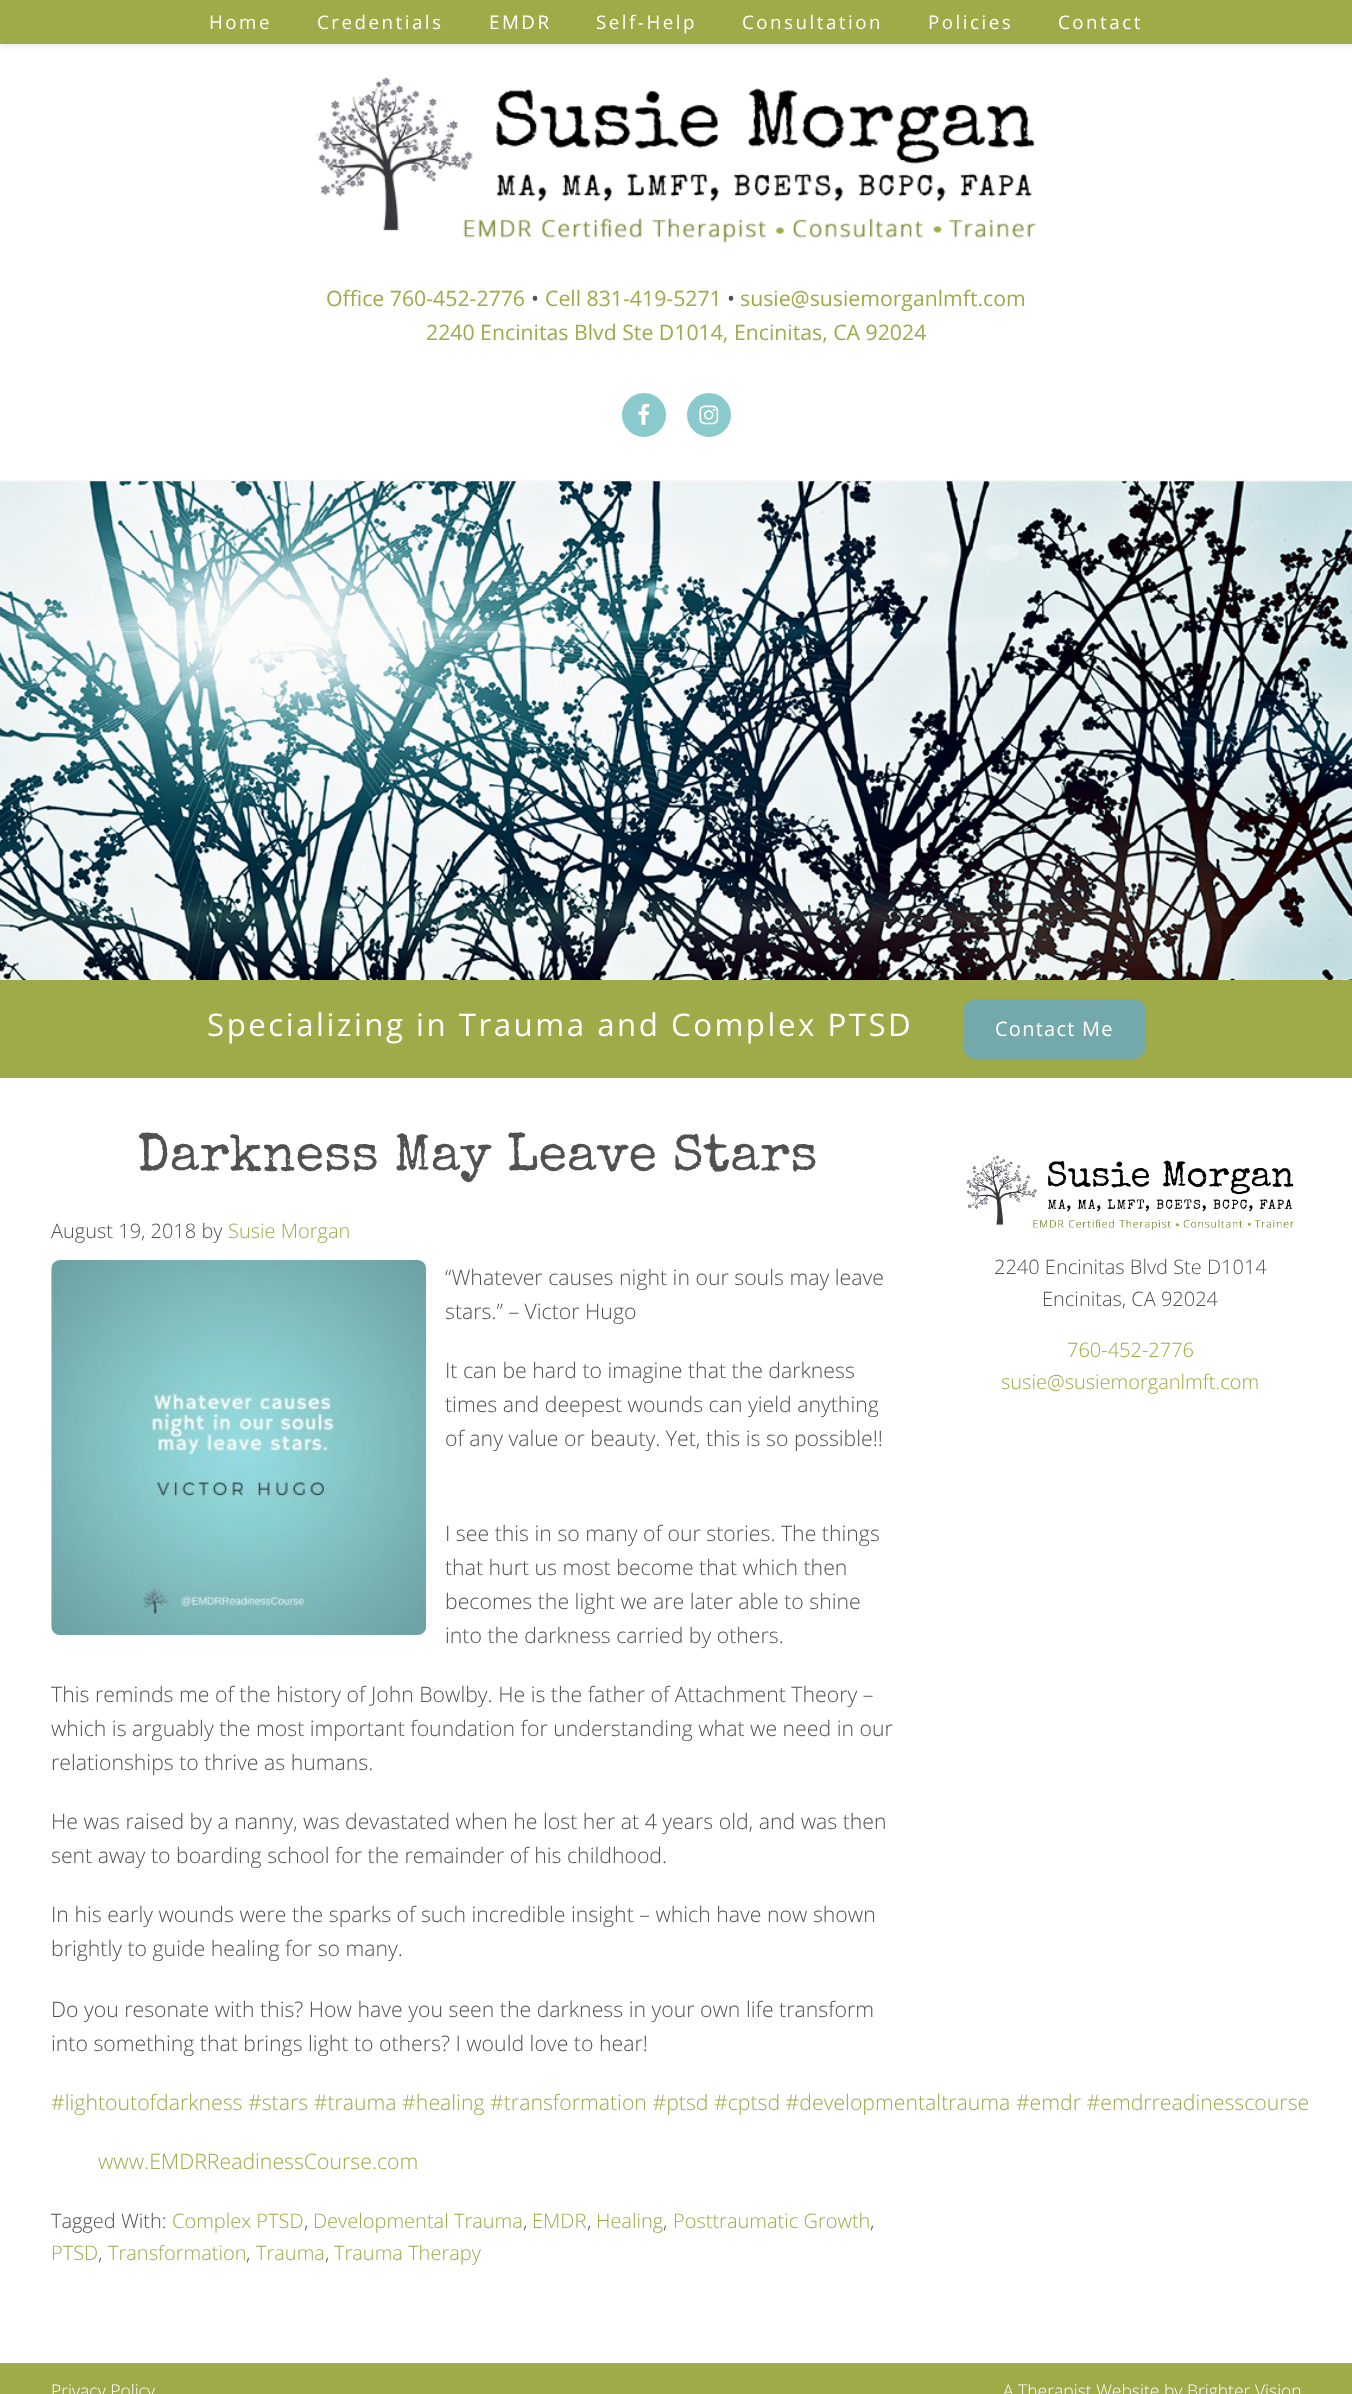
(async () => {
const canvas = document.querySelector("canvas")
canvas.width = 1352
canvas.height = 2394
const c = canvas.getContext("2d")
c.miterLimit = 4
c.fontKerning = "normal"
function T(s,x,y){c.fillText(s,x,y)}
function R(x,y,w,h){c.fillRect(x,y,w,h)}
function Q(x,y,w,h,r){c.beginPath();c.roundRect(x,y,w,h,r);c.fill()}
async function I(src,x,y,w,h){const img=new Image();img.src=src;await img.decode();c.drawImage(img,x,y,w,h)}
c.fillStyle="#fff"
R(0,0,1352,2394)
c.fillStyle="#0000001f"
c.filter="blur(3px)"
c.beginPath()
c.rect(0,1,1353,44)
c.fill()
c.filter="none"
c.fillStyle="#9faa49"
R(0,0,1352,44)
c.letterSpacing="2.5px"
c.font="18.75px Open Sans"
c.fillStyle="#fff"
T("Home",209,29)
T("Credentials",317,29)
T("EMDR",489,29)
T("Self-Help",596,29)
T("Consultation",742,29)
T("Policies",928,29)
T("Contact",1058,29)
await I("1.png",315,77,722,166)
c.letterSpacing="0px"
c.font="21.25px Open Sans"
c.fillStyle="#9faa49"
T("Office 760-452-2776",326,306)
c.fillStyle="#515151"
T("•",531,306)
c.fillStyle="#9faa49"
T("Cell 831-419-5271",545,306)
c.fillStyle="#515151"
T("•",727,306)
c.fillStyle="#9faa49"
T("susie@susiemorganlmft.com",740,306)
T("2240 Encinitas Blvd Ste D1014, Encinitas, CA 92024",426,340)
c.fillStyle="#8bcacc"
c.beginPath()
c.arc(644,415,23.5,0,7)
c.fill()
c.strokeStyle="#fff"
c.lineWidth=3
c.stroke()
await I("2.png",638,404,12,21)
c.beginPath()
c.arc(709,415,23.5,0,7)
c.fill()
c.stroke()
await I("3.png",699,405,20,20)
await I("4.png",0,481,1352,499)
c.fillStyle="#f7f7f7"
R(0,480,1352,1)
c.fillStyle="#9faa49"
R(0,980,1352,98)
c.letterSpacing="2.5px"
c.font="31.25px Open Sans"
c.fillStyle="#fff"
T("Specializing in Trauma and Complex PTSD",207,1036)
c.fillStyle="#73a9ab"
Q(963,999,183,60,13)
c.letterSpacing="1.25px"
c.font="20px Open Sans"
c.fillStyle="#fff"
T("Contact Me",995,1036)
c.letterSpacing="0px"
c.font="52.5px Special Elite"
c.fillStyle="#515151"
T("Darkness May Leave Stars",137,1170)
c.font="300 20px Open Sans"
T("August 19, 2018 by",51,1238)
c.fillStyle="#9faa49"
T("Susie Morgan",228,1238)
await I("5.png",51,1260,376,375)
c.font="300 21.25px Open Sans"
c.fillStyle="#515151"
T("“Whatever causes night in our souls may leave",445,1285)
T("stars.” – Victor Hugo",445,1319)
T("It can be hard to imagine that the darkness",445,1378)
T("times and deepest wounds can yield anything",445,1412)
T("of any value or beauty. Yet, this is so possible!!",445,1446)
T("I see this in so many of our stories. The things",445,1541)
T("that hurt us most become that which then",445,1575)
T("becomes the light we are later able to shine",445,1609)
T("into the darkness carried by others.",445,1643)
T("This reminds me of the history of John Bowlby. He is the father of Attachment Theory –",51,1702)
T("which is arguably the most important foundation for understanding what we need in our",51,1736)
T("relationships to thrive as humans.",51,1770)
T("He was raised by a nanny, was devastated when he lost her at 4 years old, and was then",51,1829)
T("sent away to boarding school for the remainder of his childhood.",51,1863)
T("In his early wounds were the sparks of such incredible insight – which have now shown",51,1922)
T("brightly to guide healing for so many.",51,1956)
T("Do you resonate with this? How have you seen the darkness in your own life transform",51,2017)
T("into something that brings light to others? I would love to hear!",51,2051)
c.fillStyle="#9faa49"
T("#lightoutofdarkness #stars #trauma #healing #transformation #ptsd #cptsd #developmentaltrauma #emdr #emdrreadinesscourse",51,2110)
T("www.EMDRReadinessCourse.com",98,2169)
c.font="300 20px Open Sans"
c.fillStyle="#515151"
T("Tagged With:",51,2228)
c.fillStyle="#9faa49"
T("Complex PTSD",172,2228)
c.fillStyle="#515151"
T(",",304,2228)
c.fillStyle="#9faa49"
T("Developmental Trauma",313,2228)
c.fillStyle="#515151"
T(",",523,2228)
c.fillStyle="#9faa49"
T("EMDR",532,2228)
c.fillStyle="#515151"
T(",",587,2228)
c.fillStyle="#9faa49"
T("Healing",596,2228)
c.fillStyle="#515151"
T(",",663,2228)
c.fillStyle="#9faa49"
T("Posttraumatic Growth",673,2228)
c.fillStyle="#515151"
T(",",870,2228)
c.fillStyle="#9faa49"
T("PTSD",51,2260)
c.fillStyle="#515151"
T(",",98,2260)
c.fillStyle="#9faa49"
T("Transformation",108,2260)
c.fillStyle="#515151"
T(",",246,2260)
c.fillStyle="#9faa49"
T("Trauma",256,2260)
c.fillStyle="#515151"
T(",",325,2260)
c.fillStyle="#9faa49"
T("Trauma Therapy",334,2260)
await I("6.png",965,1155,329,76)
c.fillStyle="#515151"
T("2240 Encinitas Blvd Ste D1014",994,1274)
T("Encinitas, CA 92024",1042,1306)
c.fillStyle="#9faa49"
T("760-452-2776",1067,1357)
T("susie@susiemorganlmft.com",1001,1389)
R(0,2363,1352,31)
c.font="300 17.5px Open Sans"
c.fillStyle="#fff"
T("Privacy Policy",51,2397)
T("A Therapist Website by Brighter Vision",1003,2397)
})()
